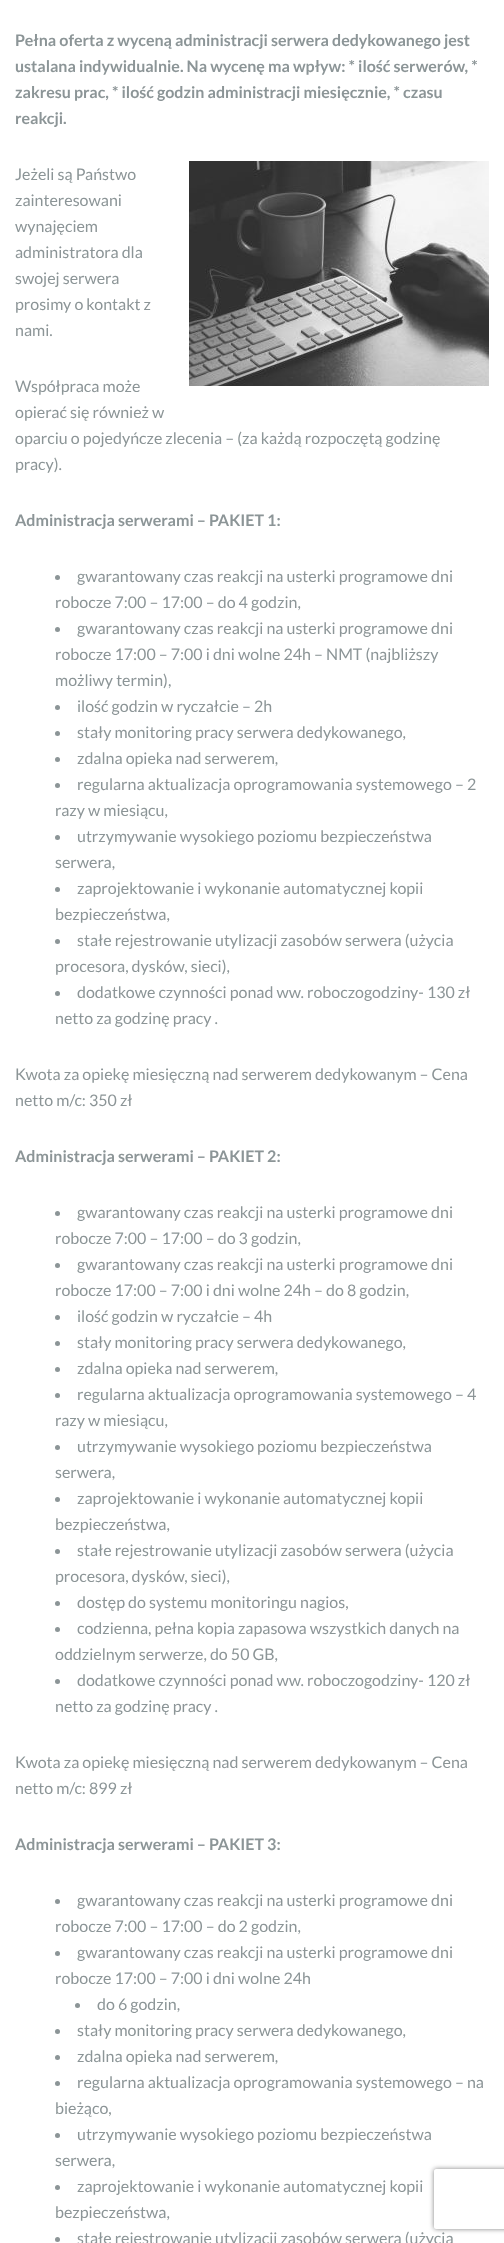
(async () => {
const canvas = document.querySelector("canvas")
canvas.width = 504
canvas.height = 2243
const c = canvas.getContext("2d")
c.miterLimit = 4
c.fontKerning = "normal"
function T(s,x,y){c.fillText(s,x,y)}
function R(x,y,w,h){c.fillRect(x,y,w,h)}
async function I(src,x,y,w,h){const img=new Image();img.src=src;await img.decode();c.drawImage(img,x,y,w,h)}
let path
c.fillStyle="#fff"
R(0,0,504,2243)
c.font="bold 16px Lato"
c.fillStyle="#8c9597"
T("Pełna oferta z wyceną administracji serwera dedykowanego jest",15,46)
T("ustalana indywidualnie. Na wycenę ma wpływ: * ilość serwerów, *",15,72)
T("zakresu prac, * ilość godzin administracji miesięcznie, * czasu",15,98)
T("reakcji.",15,124)
c.font="16px Lato"
T("Jeżeli są Państwo",15,180)
T("zainteresowani",15,206)
T("wynajęciem",15,232)
T("administratora dla",15,258)
T("swojej serwera",15,284)
T("prosimy o kontakt z",15,310)
T("nami.",15,336)
await I("1.png",189,161,300,225)
T("Współpraca może",15,392)
T("opierać się również w",15,418)
T("oparciu o pojedyńcze zlecenia – (za każdą rozpoczętą godzinę",15,444)
T("pracy).",15,470)
c.font="bold 16px Lato"
T("Administracja serwerami – PAKIET 1:",15,526)
c.beginPath()
c.arc(57.5,577.5,2.5,0,7)
c.fill()
c.font="16px Lato"
T("gwarantowany czas reakcji na usterki programowe dni",77,582)
T("robocze 7:00 – 17:00 – do 4 godzin,",55,608)
c.beginPath()
c.arc(57.5,629.5,2.5,0,7)
c.fill()
T("gwarantowany czas reakcji na usterki programowe dni",77,634)
T("robocze 17:00 – 7:00 i dni wolne 24h – NMT (najbliższy",55,660)
T("możliwy termin),",55,686)
c.beginPath()
c.arc(57.5,707.5,2.5,0,7)
c.fill()
T("ilość godzin w ryczałcie – 2h",77,712)
c.beginPath()
c.arc(57.5,733.5,2.5,0,7)
c.fill()
T("stały monitoring pracy serwera dedykowanego,",77,738)
c.beginPath()
c.arc(57.5,759.5,2.5,0,7)
c.fill()
T("zdalna opieka nad serwerem,",77,764)
c.beginPath()
c.arc(57.5,785.5,2.5,0,7)
c.fill()
T("regularna aktualizacja oprogramowania systemowego – 2",77,790)
T("razy w miesiącu,",55,816)
c.beginPath()
c.arc(57.5,837.5,2.5,0,7)
c.fill()
T("utrzymywanie wysokiego poziomu bezpieczeństwa",77,842)
T("serwera,",55,868)
c.beginPath()
c.arc(57.5,889.5,2.5,0,7)
c.fill()
T("zaprojektowanie i wykonanie automatycznej kopii",77,894)
T("bezpieczeństwa,",55,920)
c.beginPath()
c.arc(57.5,941.5,2.5,0,7)
c.fill()
T("stałe rejestrowanie utylizacji zasobów serwera (użycia",77,946)
T("procesora, dysków, sieci),",55,972)
c.beginPath()
c.arc(57.5,993.5,2.5,0,7)
c.fill()
T("dodatkowe czynności ponad ww. roboczogodziny- 130 zł",77,998)
T("netto za godzinę pracy .",55,1024)
T("Kwota za opiekę miesięczną nad serwerem dedykowanym – Cena",15,1080)
T("netto m/c: 350 zł",15,1106)
c.font="bold 16px Lato"
T("Administracja serwerami – PAKIET 2:",15,1162)
c.beginPath()
c.arc(57.5,1213.5,2.5,0,7)
c.fill()
c.font="16px Lato"
T("gwarantowany czas reakcji na usterki programowe dni",77,1218)
T("robocze 7:00 – 17:00 – do 3 godzin,",55,1244)
c.beginPath()
c.arc(57.5,1265.5,2.5,0,7)
c.fill()
T("gwarantowany czas reakcji na usterki programowe dni",77,1270)
T("robocze 17:00 – 7:00 i dni wolne 24h – do 8 godzin,",55,1296)
c.beginPath()
c.arc(57.5,1317.5,2.5,0,7)
c.fill()
T("ilość godzin w ryczałcie – 4h",77,1322)
c.beginPath()
c.arc(57.5,1343.5,2.5,0,7)
c.fill()
T("stały monitoring pracy serwera dedykowanego,",77,1348)
c.beginPath()
c.arc(57.5,1369.5,2.5,0,7)
c.fill()
T("zdalna opieka nad serwerem,",77,1374)
c.beginPath()
c.arc(57.5,1395.5,2.5,0,7)
c.fill()
T("regularna aktualizacja oprogramowania systemowego – 4",77,1400)
T("razy w miesiącu,",55,1426)
c.beginPath()
c.arc(57.5,1447.5,2.5,0,7)
c.fill()
T("utrzymywanie wysokiego poziomu bezpieczeństwa",77,1452)
T("serwera,",55,1478)
c.beginPath()
c.arc(57.5,1499.5,2.5,0,7)
c.fill()
T("zaprojektowanie i wykonanie automatycznej kopii",77,1504)
T("bezpieczeństwa,",55,1530)
c.beginPath()
c.arc(57.5,1551.5,2.5,0,7)
c.fill()
T("stałe rejestrowanie utylizacji zasobów serwera (użycia",77,1556)
T("procesora, dysków, sieci),",55,1582)
c.beginPath()
c.arc(57.5,1603.5,2.5,0,7)
c.fill()
T("dostęp do systemu monitoringu nagios,",77,1608)
c.beginPath()
c.arc(57.5,1629.5,2.5,0,7)
c.fill()
T("codzienna, pełna kopia zapasowa wszystkich danych na",77,1634)
T("oddzielnym serwerze, do 50 GB,",55,1660)
c.beginPath()
c.arc(57.5,1681.5,2.5,0,7)
c.fill()
T("dodatkowe czynności ponad ww. roboczogodziny- 120 zł",77,1686)
T("netto za godzinę pracy .",55,1712)
T("Kwota za opiekę miesięczną nad serwerem dedykowanym – Cena",15,1768)
T("netto m/c: 899 zł",15,1794)
c.font="bold 16px Lato"
T("Administracja serwerami – PAKIET 3:",15,1850)
c.beginPath()
c.arc(57.5,1901.5,2.5,0,7)
c.fill()
c.font="16px Lato"
T("gwarantowany czas reakcji na usterki programowe dni",77,1906)
T("robocze 7:00 – 17:00 – do 2 godzin,",55,1932)
c.beginPath()
c.arc(57.5,1953.5,2.5,0,7)
c.fill()
T("gwarantowany czas reakcji na usterki programowe dni",77,1958)
T("robocze 17:00 – 7:00 i dni wolne 24h",55,1984)
c.beginPath()
c.arc(77.5,2005.5,2.5,0,7)
c.fill()
T("do 6 godzin,",97,2010)
c.beginPath()
c.arc(57.5,2031.5,2.5,0,7)
c.fill()
T("stały monitoring pracy serwera dedykowanego,",77,2036)
c.beginPath()
c.arc(57.5,2057.5,2.5,0,7)
c.fill()
T("zdalna opieka nad serwerem,",77,2062)
c.beginPath()
c.arc(57.5,2083.5,2.5,0,7)
c.fill()
T("regularna aktualizacja oprogramowania systemowego – na",77,2088)
T("bieżąco,",55,2114)
c.beginPath()
c.arc(57.5,2135.5,2.5,0,7)
c.fill()
T("utrzymywanie wysokiego poziomu bezpieczeństwa",77,2140)
T("serwera,",55,2166)
c.beginPath()
c.arc(57.5,2187.5,2.5,0,7)
c.fill()
T("zaprojektowanie i wykonanie automatycznej kopii",77,2192)
T("bezpieczeństwa,",55,2218)
c.beginPath()
c.arc(57.5,2239.5,2.5,0,7)
c.fill()
T("stałe rejestrowanie utylizacji zasobów serwera (użycia",77,2244)
c.save()
path = new Path2D("M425 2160h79v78h-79zm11 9h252c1 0 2 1 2 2v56c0 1-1 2-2 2h-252c-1 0-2-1-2-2v-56c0-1 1-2 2-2z")
c.clip(path,"evenodd")
c.fillStyle="#808080"
c.filter="blur(2.5px)"
c.beginPath()
c.roundRect(434,2169,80,60,2)
c.fill()
c.filter="none"
c.restore()
})()
